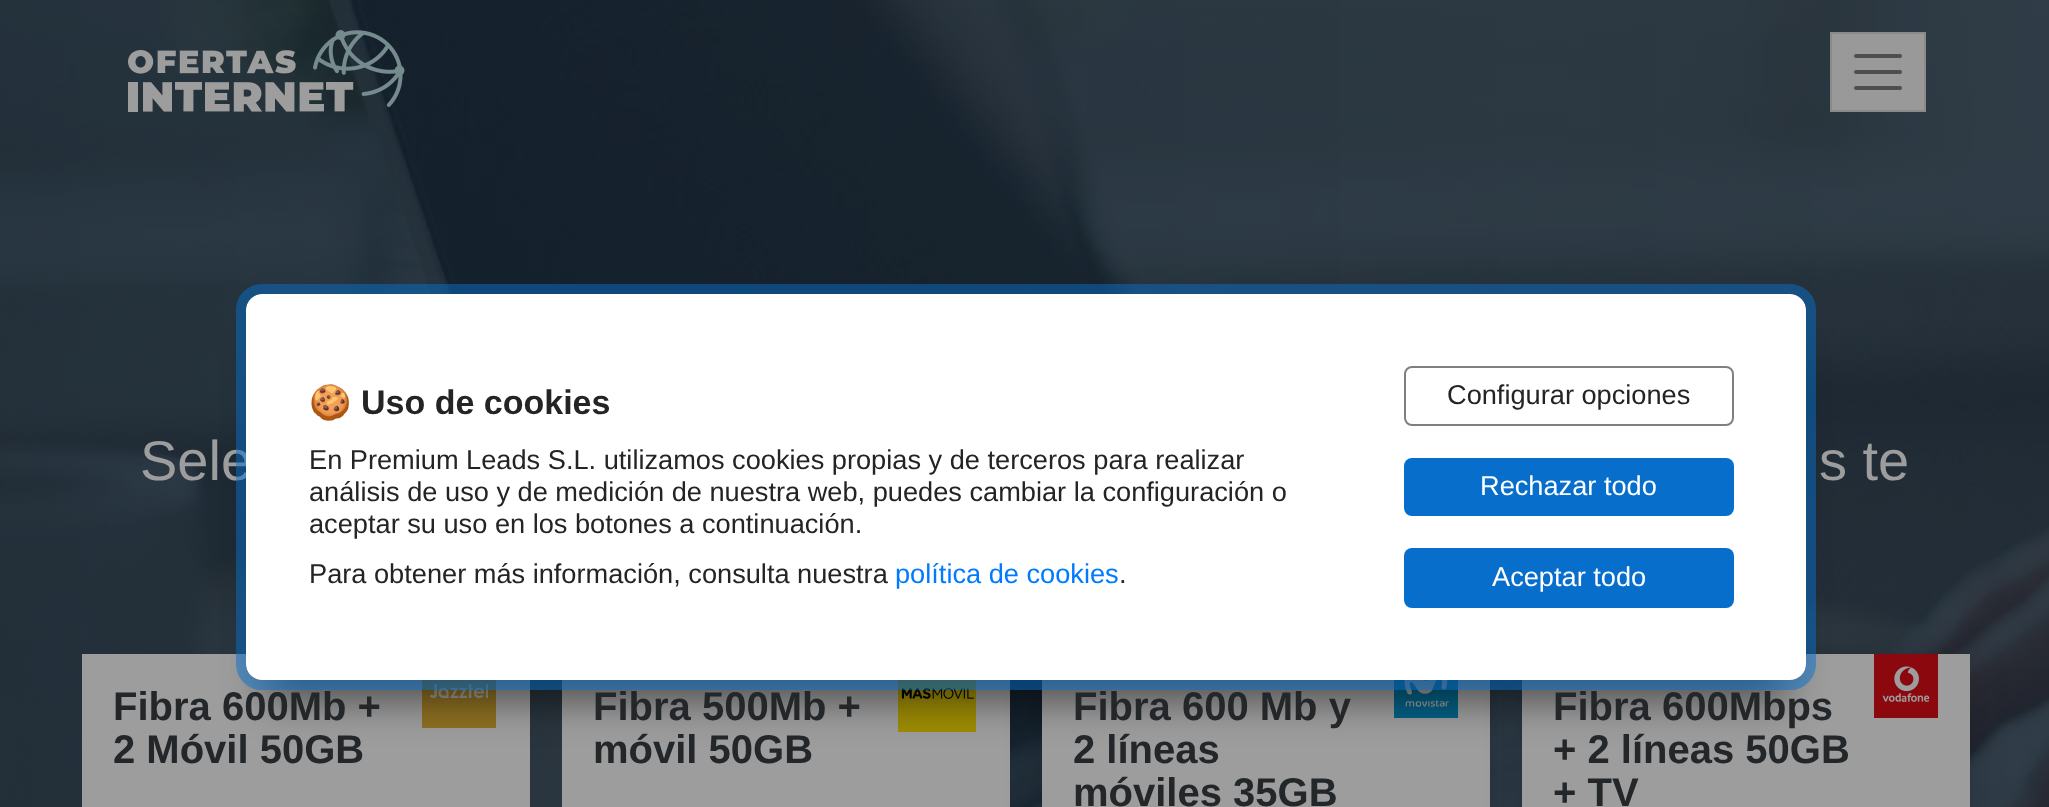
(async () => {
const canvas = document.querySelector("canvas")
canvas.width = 2049
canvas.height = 807
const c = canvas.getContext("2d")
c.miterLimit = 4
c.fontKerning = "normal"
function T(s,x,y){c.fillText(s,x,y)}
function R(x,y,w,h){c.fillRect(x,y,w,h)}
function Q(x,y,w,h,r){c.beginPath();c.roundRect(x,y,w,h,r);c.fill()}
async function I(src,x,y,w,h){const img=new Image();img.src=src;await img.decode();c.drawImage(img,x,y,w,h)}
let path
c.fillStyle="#fff"
R(0,0,2049,807)
await I("1.png",0,0,2049,807)
c.fillStyle="#9d9d9d"
R(82,654,448,153)
await I("3.png",422,680,74,48)
R(562,680,448,127)
await I("4.png",898,680,78,52)
c.fillStyle="#04040426"
c.filter="blur(18px)"
c.beginPath()
c.rect(1042,654,448,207)
c.fill()
c.filter="none"
c.fillStyle="#9d9d9d"
R(1042,680,448,127)
await I("5.png",1394,680,64,38)
c.fillStyle="#04040426"
c.filter="blur(18px)"
c.beginPath()
c.rect(1522,654,448,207)
c.fill()
c.filter="none"
c.fillStyle="#9d9d9d"
R(1522,654,448,153)
c.fillStyle="#00000080"
c.filter="blur(20px)"
c.beginPath()
c.rect(266,354,1520,346)
c.fill()
c.filter="none"
c.font="56px Liberation Sans"
c.fillStyle="#9d9d9d"
T("Sele",140,480)
c.fillStyle="#fff"
Q(246,294,1560,386,16)
c.beginPath()
c.roundRect(1405,367,328,58,7)
c.strokeStyle="#808080"
c.lineWidth=2
c.stroke()
c.fillStyle="#076fcb"
Q(1404,458,330,58,8)
Q(1404,548,330,60,8)
c.beginPath()
c.roundRect(241,289,1570,396,21)
c.strokeStyle="#076fcb80"
c.lineWidth=10
c.stroke()
c.font="bold 34px Noto Color Emoji"
c.fillStyle="#242424"
T("🍪",309,414)
c.font="bold 34px Liberation Sans"
T("Uso de cookies",361,414)
c.font="27.2px Liberation Sans"
T("En Premium Leads S.L. utilizamos cookies propias y de terceros para realizar",309,469)
T("análisis de uso y de medición de nuestra web, puedes cambiar la configuración o",309,501)
T("aceptar su uso en los botones a continuación.",309,533)
T("Para obtener más información, consulta nuestra",309,583)
c.fillStyle="#007bff"
T("política de cookies",895,583)
c.fillStyle="#242424"
T(".",1119,583)
T("Configurar opciones",1447,404)
c.fillStyle="#fff"
T("Rechazar todo",1480,495)
T("Aceptar todo",1492,586)
await I("2.png",128,30,277,82)
c.fillStyle="#99999a"
c.beginPath()
c.rect(1831,33,94,78)
c.fill()
c.strokeStyle="#8a8a8b"
c.lineWidth=2
c.stroke()
path = new Path2D("M1856 56h44m-44 16h44m-44 16h44")
c.strokeStyle="#4e4f4f"
c.lineWidth=4
c.lineCap="round"
c.stroke(path)
c.font="56px Liberation Sans"
c.fillStyle="#9d9d9d"
T("s te",1819,480)
c.font="bold 40px Liberation Sans"
c.fillStyle="#23272a"
T("Fibra 600Mb +",113,720)
T("2 Móvil 50GB",113,763)
T("Fibra 500Mb +",593,720)
T("móvil 50GB",593,763)
T("Fibra 600 Mb y",1073,720)
T("2 líneas",1073,763)
T("móviles 35GB",1073,806)
T("Fibra 600Mbps",1553,720)
T("+ 2 líneas 50GB",1553,763)
T("+ TV",1553,806)
await I("6.png",1874,654,64,64)
})()
